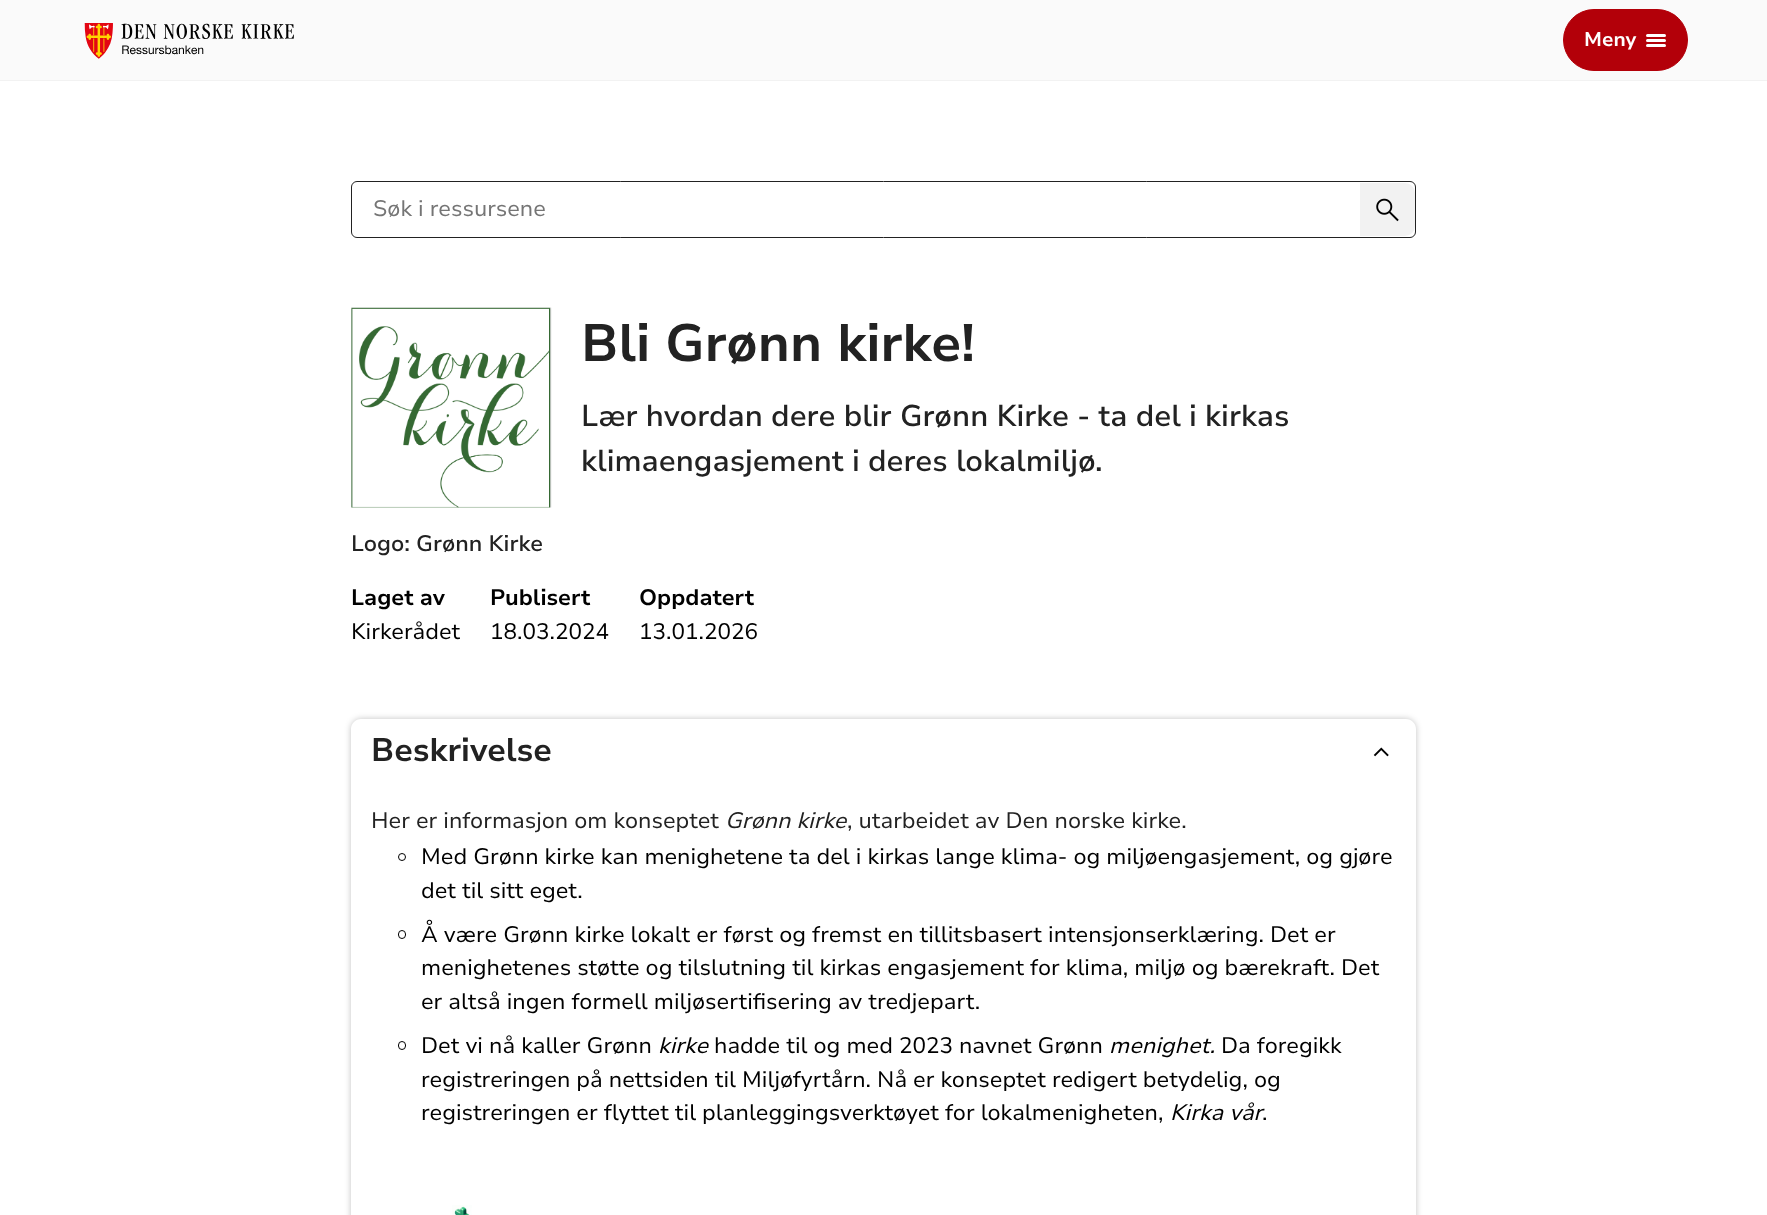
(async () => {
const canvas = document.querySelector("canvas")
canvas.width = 1767
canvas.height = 1215
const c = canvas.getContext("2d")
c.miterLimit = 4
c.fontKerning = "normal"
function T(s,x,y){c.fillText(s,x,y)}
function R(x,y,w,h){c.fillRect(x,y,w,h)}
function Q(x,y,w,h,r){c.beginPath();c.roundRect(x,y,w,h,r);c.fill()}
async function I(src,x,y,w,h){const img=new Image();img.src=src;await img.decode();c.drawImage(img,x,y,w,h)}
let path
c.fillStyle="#fff"
R(0,0,1767,1215)
c.fillStyle="#fafafa"
R(0,0,1767,80)
c.fillStyle="#f2f2f2"
R(0,80,1767,1)
await I("1.png",84,23,210,36)
c.fillStyle="#b30009"
c.beginPath()
c.roundRect(1563.5,9.5,124,61,30.5)
c.fill()
c.strokeStyle="#b30009"
c.stroke()
c.font="bold 20px Nunito Sans"
c.fillStyle="#fff"
T("Meny",1584,46)
Q(1646,34,20,3,1.5)
Q(1646,39,20,3,1.5)
Q(1646,44,20,3,1.5)
c.beginPath()
c.roundRect(351.5,181.5,1064,56,5.5)
c.strokeStyle="#222"
c.stroke()
c.font="22.5px Nunito Sans"
c.fillStyle="#757575"
T("Søk i ressursene",373,216)
c.fillStyle="#f2f2f2"
c.beginPath()
c.roundRect(1360,183,55,53,[0,10,10,0])
c.fill()
await I("2.png",1376,198,23,24)
c.font="bold 52.5px Nunito Sans"
c.fillStyle="#222"
T("Bli Grønn kirke!",581,361)
c.font="600 30px Nunito Sans"
T("Lær hvordan dere blir Grønn Kirke - ta del i kirkas",581,426)
T("klimaengasjement i deres lokalmiljø.",581,471)
await I("3.png",351,307,201,201)
c.font="600 22.5px Nunito Sans"
T("Logo: Grønn Kirke",351,551)
c.font="bold 22.5px Nunito Sans"
c.fillStyle="#000"
T("Laget av",351,605)
c.font="22.5px Nunito Sans"
T("Kirkerådet",351,639)
c.font="bold 22.5px Nunito Sans"
T("Publisert",490,605)
c.font="22.5px Nunito Sans"
T("18.03.2024",490,639)
c.font="bold 22.5px Nunito Sans"
T("Oppdatert",639,605)
c.font="22.5px Nunito Sans"
T("13.01.2026",639,639)
c.save()
path = new Path2D("M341 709h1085v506h-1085zm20 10h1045c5.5 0 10 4.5 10 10v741c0 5.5-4.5 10-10 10h-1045c-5.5 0-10-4.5-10-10v-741c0-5.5 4.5-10 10-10z")
c.clip(path,"evenodd")
c.fillStyle="#0000003d"
c.filter="blur(3px)"
c.beginPath()
c.roundRect(351,719,1065,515,10)
c.fill()
c.filter="none"
c.restore()
c.font="bold 32.5px Nunito Sans"
c.fillStyle="#222"
T("Beskrivelse",371,761)
await I("4.png",1373,747,16,10)
c.font="22.5px Nunito Sans"
T("Her er informasjon om konseptet",371,828)
c.font="italic 22.5px Nunito Sans"
T("Grønn kirke",725,828)
c.font="22.5px Nunito Sans"
T(", utarbeidet av Den norske kirke.",847,828)
c.beginPath()
c.arc(402,857,3.5,0,7)
c.strokeStyle="#000"
c.stroke()
c.fillStyle="#000"
T("Med Grønn kirke kan menighetene ta del i kirkas lange klima- og miljøengasjement, og gjøre",421,864)
T("det til sitt eget.",421,898)
c.beginPath()
c.roundRect(398.5,930.5,7,8,3.5)
c.stroke()
T("Å være Grønn kirke lokalt er først og fremst en tillitsbasert intensjonserklæring. Det er",421,942)
T("menighetenes støtte og tilslutning til kirkas engasjement for klima, miljø og bærekraft. Det",421,975)
T("er altså ingen formell miljøsertifisering av tredjepart.",421,1009)
c.beginPath()
c.roundRect(398.5,1041.5,7,8,3.5)
c.stroke()
T("Det vi nå kaller Grønn",421,1053)
c.font="italic 22.5px Nunito Sans"
T("kirke",658,1053)
c.font="22.5px Nunito Sans"
T("hadde til og med 2023 navnet Grønn",714,1053)
c.font="italic 22.5px Nunito Sans"
T("menighet.",1109,1053)
c.font="22.5px Nunito Sans"
T("Da foregikk",1221,1053)
T("registreringen på nettsiden til Miljøfyrtårn. Nå er konseptet redigert betydelig, og",421,1087)
T("registreringen er flyttet til planleggingsverktøyet for lokalmenigheten,",421,1120)
c.font="italic 22.5px Nunito Sans"
T("Kirka vår",1170,1120)
c.font="22.5px Nunito Sans"
T(".",1262,1120)
await I("5.png",452,1205,20,10)
})()
